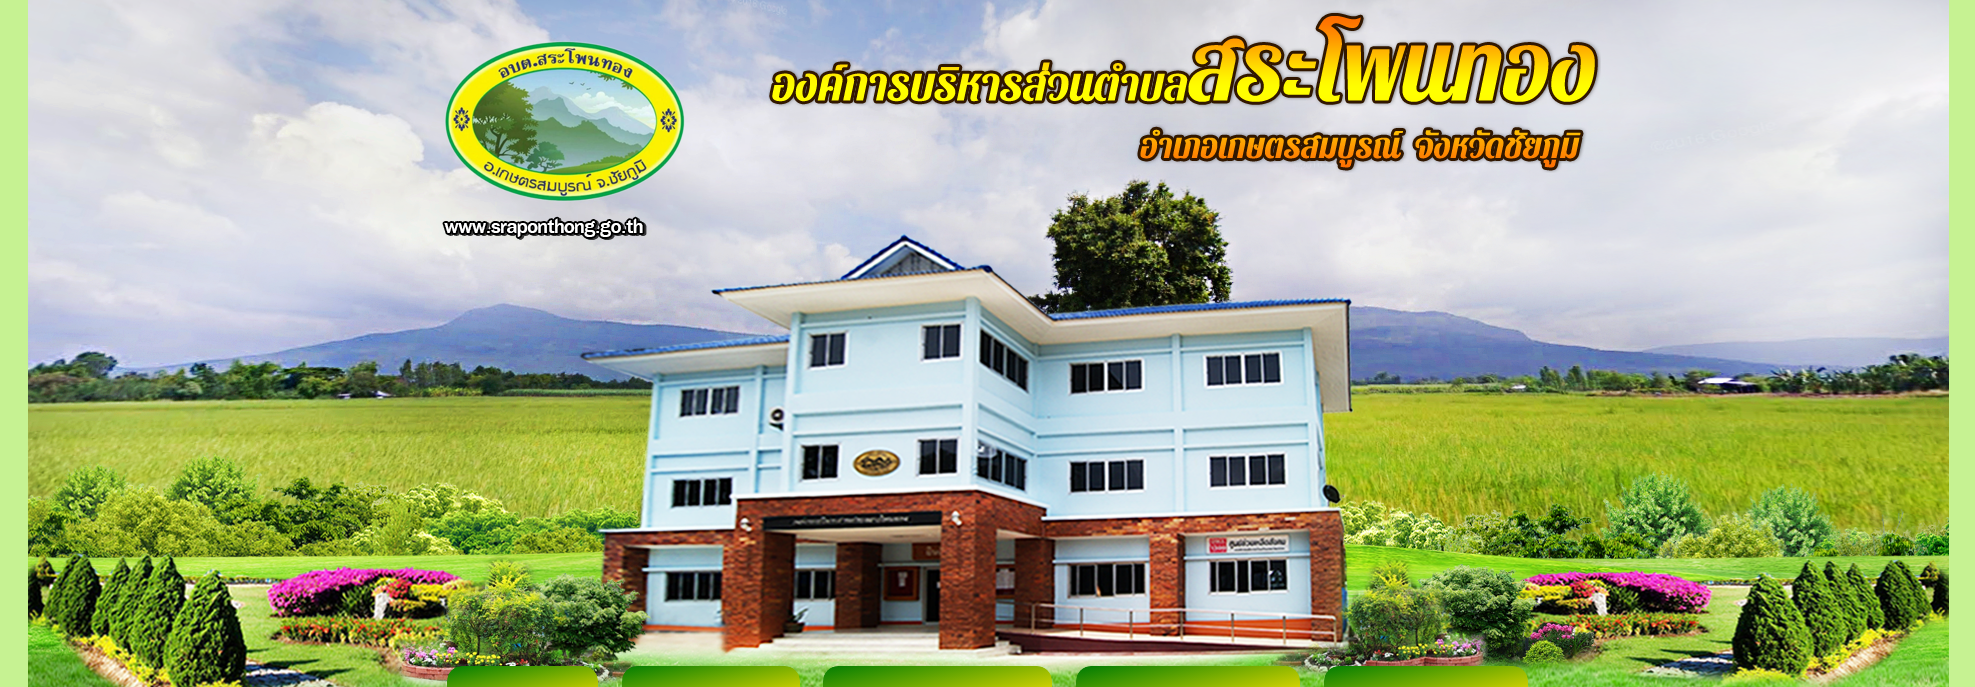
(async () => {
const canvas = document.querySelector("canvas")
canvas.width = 1975
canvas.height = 687
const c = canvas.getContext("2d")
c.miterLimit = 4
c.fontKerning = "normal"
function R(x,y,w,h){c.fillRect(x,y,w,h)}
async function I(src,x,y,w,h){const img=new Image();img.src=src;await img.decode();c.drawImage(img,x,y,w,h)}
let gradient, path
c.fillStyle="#c6f292"
R(0,0,1975,687)
await I("1.png",28,0,335,687)
await I("2.png",363,0,1250,687)
await I("3.png",444,41,241,161)
await I("4.png",768,10,833,163)
c.save()
c.beginPath()
c.roundRect(447,666,151,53,15)
c.clip()
gradient = c.createLinearGradient(531,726,514,651)
gradient.addColorStop(.22,"#d4d300")
gradient.addColorStop(1,"#007c03")
c.fillStyle = gradient
path = new Path2D("M462 666h121c8.5 0 15 6.5 15 15v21h-151v-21c0-8.5 6.5-15 15-15z")
c.fill(path)
c.restore()
c.save()
c.beginPath()
c.roundRect(622,666,178,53,15)
c.clip()
gradient = c.createLinearGradient(720,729,702,648)
gradient.addColorStop(.22,"#d4d300")
gradient.addColorStop(1,"#007c03")
c.fillStyle = gradient
path = new Path2D("M637 666h148c8.5 0 15 6.5 15 15v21h-178v-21c0-8.5 6.5-15 15-15z")
c.fill(path)
c.restore()
c.save()
c.beginPath()
c.roundRect(823,666,229,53,15)
c.clip()
gradient = c.createLinearGradient(948,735,927,642)
gradient.addColorStop(.22,"#d4d300")
gradient.addColorStop(1,"#007c03")
c.fillStyle = gradient
path = new Path2D("M838 666h199c8.5 0 15 6.5 15 15v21h-229v-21c0-8.5 6.5-15 15-15z")
c.fill(path)
c.restore()
c.save()
c.beginPath()
c.roundRect(1076,666,224,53,15)
c.clip()
gradient = c.createLinearGradient(1199,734,1177,643)
gradient.addColorStop(.22,"#d4d300")
gradient.addColorStop(1,"#007c03")
c.fillStyle = gradient
path = new Path2D("M1091 666h194c8.5 0 15 6.5 15 15v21h-224v-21c0-8.5 6.5-15 15-15z")
c.fill(path)
c.restore()
c.save()
c.beginPath()
c.roundRect(1324,666,204,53,15)
c.clip()
gradient = c.createLinearGradient(1436,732,1416,645)
gradient.addColorStop(.22,"#d4d300")
gradient.addColorStop(1,"#007c03")
c.fillStyle = gradient
path = new Path2D("M1339 666h174c8.5 0 15 6.5 15 15v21h-204v-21c0-8.5 6.5-15 15-15z")
c.fill(path)
c.restore()
await I("5.png",1613,0,336,687)
})()
